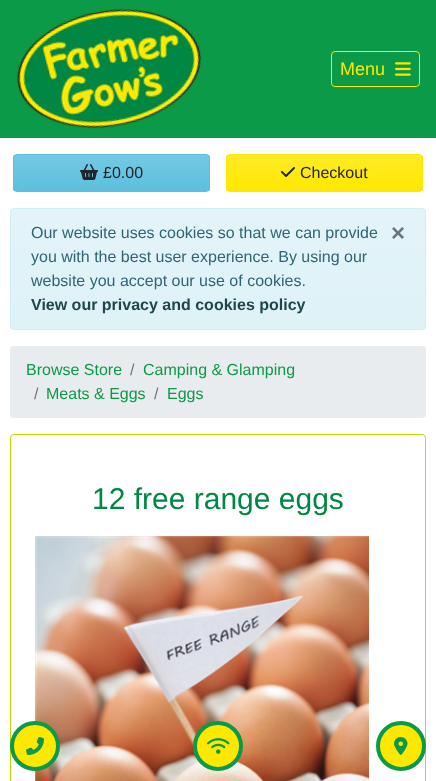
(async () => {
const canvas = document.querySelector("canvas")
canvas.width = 436
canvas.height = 781
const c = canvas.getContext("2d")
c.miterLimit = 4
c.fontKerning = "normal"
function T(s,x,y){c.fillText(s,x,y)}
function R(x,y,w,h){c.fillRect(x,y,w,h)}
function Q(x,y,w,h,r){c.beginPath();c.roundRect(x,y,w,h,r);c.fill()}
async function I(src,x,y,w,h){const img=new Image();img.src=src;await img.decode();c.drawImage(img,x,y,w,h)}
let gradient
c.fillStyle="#fff"
R(0,0,436,781)
c.fillStyle="#0b9a47"
R(0,0,436,138)
await I("1.png",16,8,186,121)
c.beginPath()
c.roundRect(331.5,51.5,88,35,3.5)
c.strokeStyle="#ffe800"
c.stroke()
c.font="18px Liberation Sans"
c.fillStyle="#ffe800"
T("Menu",340,75)
await I("2.png",395,62,16,14)
c.save()
c.beginPath()
c.roundRect(13,154,197,38,4)
c.clip()
gradient = c.createLinearGradient(112,155,112,191)
gradient.addColorStop(0,"#74c9e3")
gradient.addColorStop(1,"#5bc0de")
c.fillStyle = gradient
R(13,155,197,36)
c.restore()
c.beginPath()
c.roundRect(13.5,154.5,196,37,3.5)
c.strokeStyle="#5bc0de"
c.stroke()
await I("3.png",80,164,18,16)
c.font="16px Liberation Sans"
c.fillStyle="#212529"
T("£0.00",103,178)
c.save()
c.beginPath()
c.roundRect(226,154,197,38,4)
c.clip()
gradient = c.createLinearGradient(325,155,325,191)
gradient.addColorStop(0,"#ffeb26")
gradient.addColorStop(1,"#ffe800")
c.fillStyle = gradient
R(226,155,197,36)
c.restore()
c.beginPath()
c.roundRect(226.5,154.5,196,37,3.5)
c.strokeStyle="#ffe800"
c.stroke()
await I("4.png",281,167,14,10)
T("Checkout",300,178)
c.beginPath()
c.roundRect(10.5,434.5,415,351,3.5)
c.strokeStyle="#c1da00"
c.stroke()
await I("8.png",35,536,334,245)
c.fillStyle="#ffe800"
c.beginPath()
c.arc(35,746,23,0,7)
c.fill()
c.strokeStyle="#0b9a47"
c.lineWidth=4
c.stroke()
await I("5.png",26,737,18,18)
c.beginPath()
c.arc(218,746,23,0,7)
c.fill()
c.stroke()
await I("6.png",207,738,23,16)
c.beginPath()
c.arc(401,746,23,0,7)
c.fill()
c.stroke()
await I("7.png",394,737,14,18)
c.save()
c.beginPath()
c.roundRect(10,208,416,122,4)
c.clip()
gradient = c.createLinearGradient(218,209,218,329)
gradient.addColorStop(0,"#e3f4f9")
gradient.addColorStop(1,"#def2f8")
c.fillStyle = gradient
R(10,209,416,120)
c.restore()
c.beginPath()
c.roundRect(10.5,208.5,415,121,3.5)
c.strokeStyle="#d1edf6"
c.lineWidth=1
c.stroke()
c.fillStyle="#2f6473"
T("Our website uses cookies so that we can provide",31,238)
c.font="bold 24px Liberation Sans"
c.fillStyle="#6c757d"
T("×",391,241)
c.font="16px Liberation Sans"
c.fillStyle="#2f6473"
T("you with the best user experience. By using our",31,262)
T("website you accept our use of cookies.",31,286)
c.font="bold 16px Liberation Sans"
c.fillStyle="#20454f"
T("View our privacy and cookies policy",31,310)
c.fillStyle="#e9ecef"
Q(10,346,416,72,4)
c.font="16px Liberation Sans"
c.fillStyle="#0b9a47"
T("Browse Store",26,375)
c.fillStyle="#6c757d"
T("/",130,375)
c.fillStyle="#0b9a47"
T("Camping & Glamping",143,375)
c.fillStyle="#6c757d"
T("/",34,399)
c.fillStyle="#0b9a47"
T("Meats & Eggs",46,399)
c.fillStyle="#6c757d"
T("/",154,399)
c.fillStyle="#0b9a47"
T("Eggs",167,399)
c.font="30px Liberation Sans"
c.fillStyle="#008743"
T("12 free range eggs",92,509)
})()
